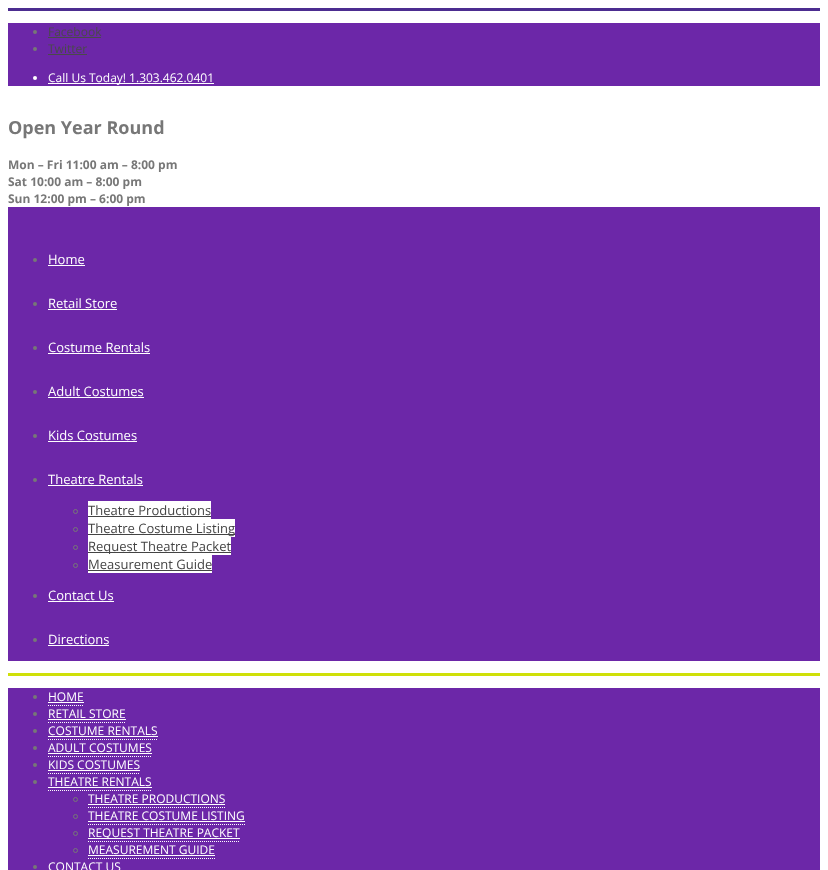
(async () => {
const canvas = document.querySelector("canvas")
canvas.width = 828
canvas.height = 870
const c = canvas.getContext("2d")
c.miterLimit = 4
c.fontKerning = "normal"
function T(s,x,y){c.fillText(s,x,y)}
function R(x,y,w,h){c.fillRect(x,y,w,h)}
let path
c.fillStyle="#fff"
R(0,0,828,870)
c.fillStyle="#4c2d90"
R(8,8,812,3)
c.fillStyle="#6c27a8"
R(8,23,812,63)
c.fillStyle="#777"
c.beginPath()
c.arc(35,32,2,0,7)
c.fill()
c.font="12px Open Sans"
c.fillStyle="#4a4a4a"
T("Facebook",48,36)
R(48,37,53,1)
c.fillStyle="#777"
c.beginPath()
c.arc(35,49,2,0,7)
c.fill()
c.fillStyle="#4a4a4a"
T("Twitter",48,53)
R(48,54,39,1)
c.fillStyle="#fff"
c.beginPath()
c.arc(35,78,2,0,7)
c.fill()
R(48,83,166,1)
T("Call Us Today! 1.303.462.0401",48,82)
c.fillStyle="#cfe008"
R(8,673,812,3)
c.font="bold 18px Open Sans"
c.fillStyle="#777"
T("Open Year Round",8,134)
c.font="bold 12px Open Sans"
T("Mon – Fri 11:00 am – 8:00 pm",8,169)
T("Sat 10:00 am – 8:00 pm",8,186)
T("Sun 12:00 pm – 6:00 pm",8,203)
c.fillStyle="#6c27a8"
R(8,207,812,454)
c.fillStyle="#777"
c.beginPath()
c.arc(35,260,2,0,7)
c.fill()
c.font="13px Open Sans"
c.fillStyle="#fff"
T("Home",48,264)
R(48,265,37,1)
c.fillStyle="#777"
c.beginPath()
c.arc(35,304,2,0,7)
c.fill()
c.fillStyle="#fff"
T("Retail Store",48,308)
R(48,309,69,1)
c.fillStyle="#777"
c.beginPath()
c.arc(35,348,2,0,7)
c.fill()
c.fillStyle="#fff"
T("Costume Rentals",48,352)
R(48,353,102,1)
c.fillStyle="#777"
c.beginPath()
c.arc(35,392,2,0,7)
c.fill()
c.fillStyle="#fff"
T("Adult Costumes",48,396)
R(48,397,96,1)
c.fillStyle="#777"
c.beginPath()
c.arc(35,436,2,0,7)
c.fill()
c.fillStyle="#fff"
T("Kids Costumes",48,440)
R(48,441,89,1)
c.fillStyle="#777"
c.beginPath()
c.arc(35,480,2,0,7)
c.fill()
c.fillStyle="#fff"
T("Theatre Rentals",48,484)
R(48,485,95,1)
c.beginPath()
c.arc(75.5,511.5,2,0,7)
c.strokeStyle="#777"
c.stroke()
R(88,501,123,18)
c.fillStyle="#444"
T("Theatre Productions",88,515)
R(88,516,123,1)
c.beginPath()
c.arc(75.5,529.5,2,0,7)
c.stroke()
c.fillStyle="#fff"
R(88,519,147,18)
c.fillStyle="#444"
R(88,534,147,1)
T("Theatre Costume Listing",88,533)
c.beginPath()
c.arc(75.5,547.5,2,0,7)
c.stroke()
c.fillStyle="#fff"
R(88,537,143,18)
c.fillStyle="#444"
R(88,552,143,1)
T("Request Theatre Packet",88,551)
c.beginPath()
c.arc(75.5,565.5,2,0,7)
c.stroke()
c.fillStyle="#fff"
R(88,555,124,18)
c.fillStyle="#444"
T("Measurement Guide",88,569)
R(88,570,124,1)
c.fillStyle="#777"
c.beginPath()
c.arc(35,596,2,0,7)
c.fill()
c.fillStyle="#fff"
T("Contact Us",48,600)
R(48,601,66,1)
c.fillStyle="#777"
c.beginPath()
c.arc(35,640,2,0,7)
c.fill()
c.fillStyle="#fff"
T("Directions",48,644)
R(48,645,61,1)
c.fillStyle="#6c27a8"
R(8,688,812,182)
c.fillStyle="#777"
c.beginPath()
c.arc(35,697,2,0,7)
c.fill()
c.font="12px Open Sans"
c.fillStyle="#fff"
T("HOME",48,701)
path = new Path2D("M48 705.5h36")
c.strokeStyle="#fff"
c.setLineDash([1,1])
c.stroke(path)
c.fillStyle="#fffeff"
R(48,702,36,1)
c.fillStyle="#777"
c.beginPath()
c.arc(35,714,2,0,7)
c.fill()
c.fillStyle="#fff"
T("RETAIL STORE",48,718)
path = new Path2D("M48 722.5h78")
c.stroke(path)
c.fillStyle="#fffeff"
R(48,719,78,1)
c.fillStyle="#777"
c.beginPath()
c.arc(35,731,2,0,7)
c.fill()
c.fillStyle="#fff"
T("COSTUME RENTALS",48,735)
path = new Path2D("M48 739.5h110")
c.stroke(path)
c.fillStyle="#fffeff"
R(48,736,110,1)
c.fillStyle="#777"
c.beginPath()
c.arc(35,748,2,0,7)
c.fill()
c.fillStyle="#fff"
T("ADULT COSTUMES",48,752)
path = new Path2D("M48 756.5h104")
c.stroke(path)
c.fillStyle="#fffeff"
R(48,753,104,1)
c.fillStyle="#777"
c.beginPath()
c.arc(35,765,2,0,7)
c.fill()
c.fillStyle="#fff"
T("KIDS COSTUMES",48,769)
path = new Path2D("M48 773.5h92")
c.stroke(path)
c.fillStyle="#fffeff"
R(48,770,92,1)
c.fillStyle="#777"
c.beginPath()
c.arc(35,782,2,0,7)
c.fill()
c.fillStyle="#fff"
T("THEATRE RENTALS",48,786)
path = new Path2D("M48 790.5h104")
c.stroke(path)
c.fillStyle="#fffeff"
R(48,787,104,1)
c.beginPath()
c.arc(75.5,799.5,2,0,7)
c.strokeStyle="#777"
c.setLineDash([])
c.stroke()
c.fillStyle="#fff"
T("THEATRE PRODUCTIONS",88,803)
path = new Path2D("M88 807.5h137")
c.strokeStyle="#fff"
c.setLineDash([1,1])
c.stroke(path)
c.fillStyle="#fffeff"
R(88,804,137,1)
c.beginPath()
c.arc(75.5,816.5,2,0,7)
c.strokeStyle="#777"
c.setLineDash([])
c.stroke()
c.fillStyle="#fff"
T("THEATRE COSTUME LISTING",88,820)
path = new Path2D("M88 824.5h157")
c.strokeStyle="#fff"
c.setLineDash([1,1])
c.stroke(path)
c.fillStyle="#fffeff"
R(88,821,157,1)
c.beginPath()
c.arc(75.5,833.5,2,0,7)
c.strokeStyle="#777"
c.setLineDash([])
c.stroke()
R(88,838,152,1)
c.fillStyle="#fff"
T("REQUEST THEATRE PACKET",88,837)
path = new Path2D("M88 841.5h152")
c.strokeStyle="#fff"
c.setLineDash([1,1])
c.stroke(path)
c.beginPath()
c.arc(75.5,850.5,2,0,7)
c.strokeStyle="#777"
c.setLineDash([])
c.stroke()
T("MEASUREMENT GUIDE",88,854)
path = new Path2D("M88 858.5h127")
c.strokeStyle="#fff"
c.setLineDash([1,1])
c.stroke(path)
c.fillStyle="#fffeff"
R(88,855,127,1)
c.fillStyle="#777"
c.beginPath()
c.arc(35,867,2,0,7)
c.fill()
c.fillStyle="#fff"
T("CONTACT US",48,871)
})()
